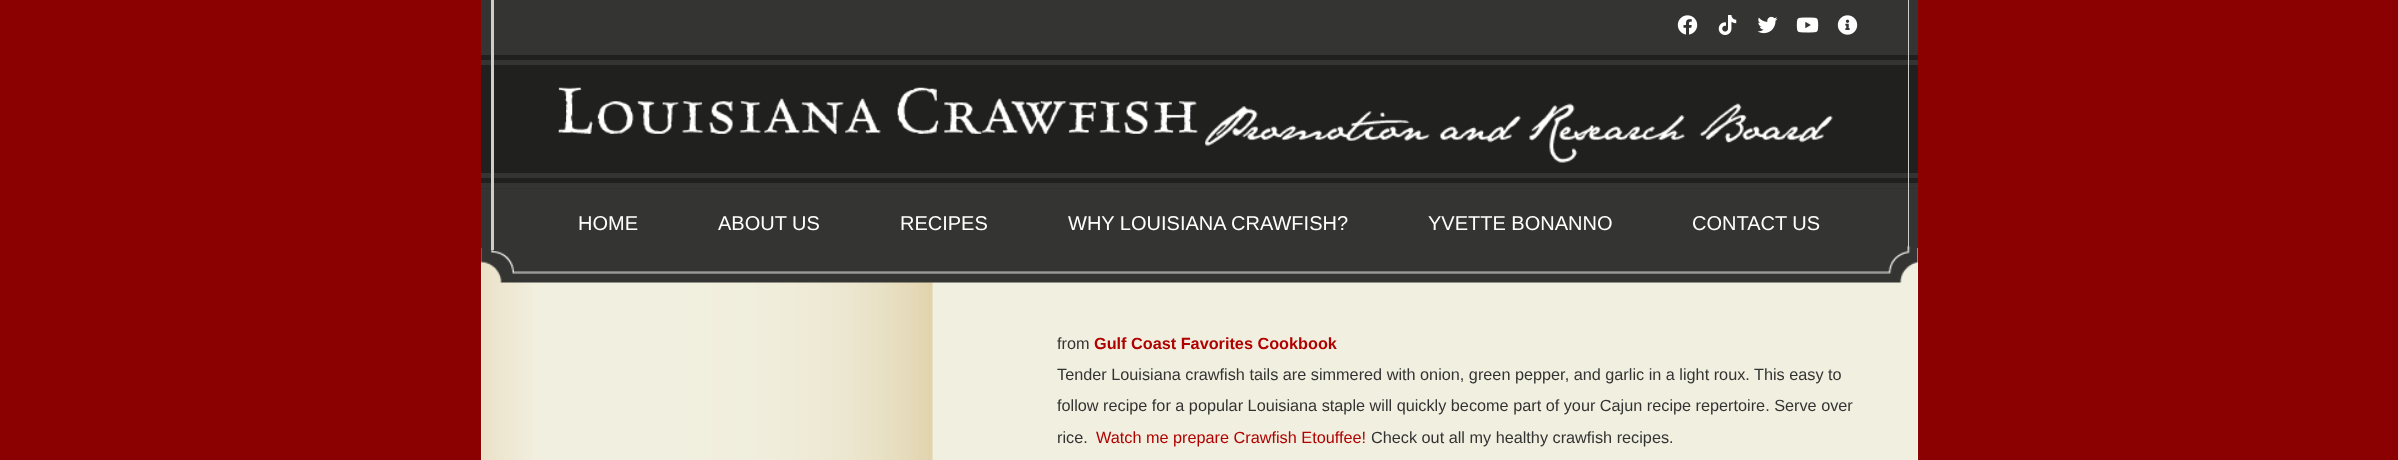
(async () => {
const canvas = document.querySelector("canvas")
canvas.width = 2398
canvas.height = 460
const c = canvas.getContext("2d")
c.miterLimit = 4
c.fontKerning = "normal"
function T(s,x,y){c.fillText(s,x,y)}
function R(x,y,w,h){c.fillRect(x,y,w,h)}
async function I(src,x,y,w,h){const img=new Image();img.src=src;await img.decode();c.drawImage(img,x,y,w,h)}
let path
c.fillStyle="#8b0000"
R(0,0,2398,460)
c.fillStyle="#fff"
R(481,248,1437,212)
c.fillStyle="#343433"
R(481,0,1437,55)
c.fillStyle="#ccc"
R(491,0,3,50)
await I("1.png",1677,15,21,20)
await I("2.png",1718,15,19,20)
await I("3.png",1757,16,21,18)
await I("4.png",1796,17,23,16)
await I("5.png",1837,15,21,20)
R(1908,0,1,50)
c.fillStyle="#30302f"
path = new Path2D("M481 51v138h1437v-138v137h-1437z")
c.fill(path)
c.fillStyle="#20201f"
R(481,55,1437,128)
c.fillStyle="#343433"
R(481,60,1437,5)
R(481,173,1437,5)
R(481,183,1437,5)
await I("9.png",481,248,1437,212)
c.fillStyle="#00000014"
path = new Path2D("M481 189v60h1437v-60v59h-1437z")
c.fill(path)
c.fillStyle="#343433"
R(481,189,1437,59)
await I("8.png",481,246,1437,37)
c.fillStyle="#ccc"
R(491,50,3,200)
await I("6.png",558,87,640,47)
await I("7.png",1205,103,628,60)
R(1908,50,1,200)
c.font="20px Liberation Sans"
c.fillStyle="#fff"
T("HOME",578,230)
T("ABOUT US",718,230)
T("RECIPES",900,230)
T("WHY LOUISIANA CRAWFISH?",1068,230)
T("YVETTE BONANNO",1428,230)
T("CONTACT US",1692,230)
c.font="16.25px Liberation Sans"
c.fillStyle="#333"
T("from",1057,349)
c.font="bold 16.25px Liberation Sans"
c.fillStyle="#b00000"
T("Gulf Coast Favorites Cookbook",1094,349)
c.font="16.25px Liberation Sans"
c.fillStyle="#333"
T("Tender Louisiana crawfish tails are simmered with onion, green pepper, and garlic in a light roux. This easy to",1057,380)
T("follow recipe for a popular Louisiana staple will quickly become part of your Cajun recipe repertoire. Serve over",1057,411)
T("rice.",1057,443)
c.fillStyle="#b00000"
T("Watch me prepare Crawfish Etouffee!",1096,443)
c.fillStyle="#333"
T("Check out all my healthy crawfish recipes.",1371,443)
})()
